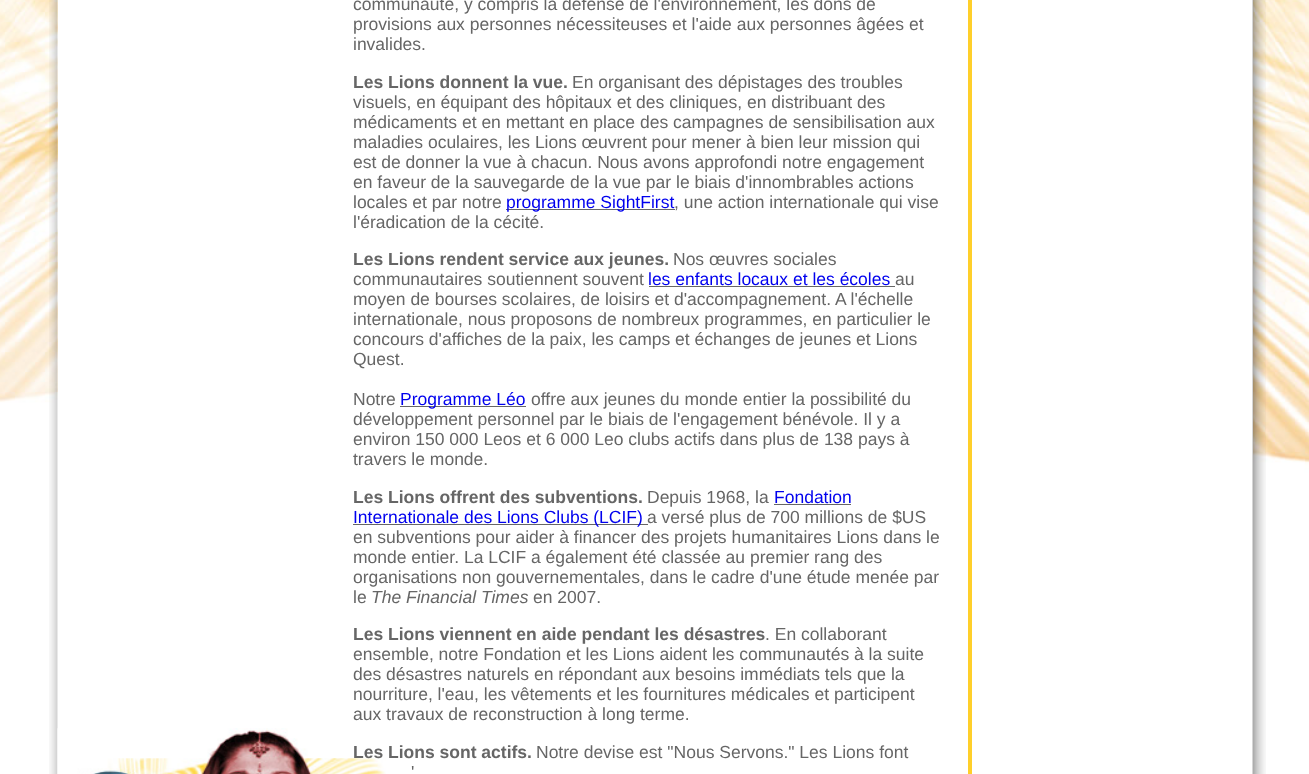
(async () => {
const canvas = document.querySelector("canvas")
canvas.width = 1309
canvas.height = 774
const c = canvas.getContext("2d")
c.miterLimit = 4
c.fontKerning = "normal"
function T(s,x,y){c.fillText(s,x,y)}
function R(x,y,w,h){c.fillRect(x,y,w,h)}
async function I(src,x,y,w,h){const img=new Image();img.src=src;await img.decode();c.drawImage(img,x,y,w,h)}
c.fillStyle="#fff"
R(0,0,1309,774)
await I("1.png",0,0,1309,672)
await I("2.png",49,0,9,774)
R(58,0,1195,672)
await I("3.png",57,728,329,46)
c.font="17.5px Liberation Sans"
c.fillStyle="#666"
T("communauté, y compris la défense de l'environnement, les dons de",353,10)
T("provisions aux personnes nécessiteuses et l'aide aux personnes âgées et",353,30)
T("invalides.",353,50)
c.font="bold 17.5px Liberation Sans"
T("Les Lions donnent la vue.",353,88)
c.font="17.5px Liberation Sans"
T("En organisant des dépistages des troubles",572,88)
T("visuels, en équipant des hôpitaux et des cliniques, en distribuant des",353,108)
T("médicaments et en mettant en place des campagnes de sensibilisation aux",353,128)
T("maladies oculaires, les Lions œuvrent pour mener à bien leur mission qui",353,148)
T("est de donner la vue à chacun. Nous avons approfondi notre engagement",353,168)
T("en faveur de la sauvegarde de la vue par le biais d'innombrables actions",353,188)
T("locales et par notre",353,208)
R(506,209,169,1)
c.fillStyle="#00e"
T("programme SightFirst",506,208)
c.fillStyle="#666"
T(", une action internationale qui vise",674,208)
T("l'éradication de la cécité.",353,228)
c.font="bold 17.5px Liberation Sans"
T("Les Lions rendent service aux jeunes.",353,265)
c.font="17.5px Liberation Sans"
T("Nos œuvres sociales",673,265)
T("communautaires soutiennent souvent",353,285)
c.fillStyle="#00e"
T("les enfants locaux et les écoles",648,285)
c.fillStyle="#666"
R(649,286,246,1)
T("au",895,285)
T("moyen de bourses scolaires, de loisirs et d'accompagnement. A l'échelle",353,305)
T("internationale, nous proposons de nombreux programmes, en particulier le",353,325)
T("concours d'affiches de la paix, les camps et échanges de jeunes et Lions",353,345)
T("Quest.",353,365)
T("Notre",353,405)
R(400,406,126,1)
c.fillStyle="#00e"
T("Programme Léo",400,405)
c.fillStyle="#666"
T("offre aux jeunes du monde entier la possibilité du",531,405)
T("développement personnel par le biais de l'engagement bénévole. Il y a",353,425)
T("environ 150 000 Leos et 6 000 Leo clubs actifs dans plus de 138 pays à",353,445)
T("travers le monde.",353,465)
c.font="bold 17.5px Liberation Sans"
T("Les Lions offrent des subventions.",353,503)
c.font="17.5px Liberation Sans"
T("Depuis 1968, la",647,503)
c.fillStyle="#00e"
T("Fondation",774,503)
c.fillStyle="#666"
R(774,504,77,1)
R(353,524,295,1)
c.fillStyle="#00e"
T("Internationale des Lions Clubs (LCIF)",353,523)
c.fillStyle="#666"
T("a versé plus de 700 millions de $US",647,523)
T("en subventions pour aider à financer des projets humanitaires Lions dans le",353,543)
T("monde entier. La LCIF a également été classée au premier rang des",353,563)
T("organisations non gouvernementales, dans le cadre d'une étude menée par",353,583)
T("le",353,603)
c.font="italic 17.5px Liberation Sans"
T("The Financial Times",371,603)
c.font="17.5px Liberation Sans"
T("en 2007.",533,603)
c.font="bold 17.5px Liberation Sans"
T("Les Lions viennent en aide pendant les désastres",353,640)
c.font="17.5px Liberation Sans"
T(". En collaborant",765,640)
T("ensemble, notre Fondation et les Lions aident les communautés à la suite",353,660)
T("des désastres naturels en répondant aux besoins immédiats tels que la",353,680)
T("nourriture, l'eau, les vêtements et les fournitures médicales et participent",353,700)
T("aux travaux de reconstruction à long terme.",353,720)
c.font="bold 17.5px Liberation Sans"
T("Les Lions sont actifs.",353,758)
c.font="17.5px Liberation Sans"
T("Notre devise est \"Nous Servons.\" Les Lions font",536,758)
T("'",411,778)
c.fillStyle="#ffcf2a"
R(968,0,4,774)
await I("4.png",1252,0,14,774)
})()
